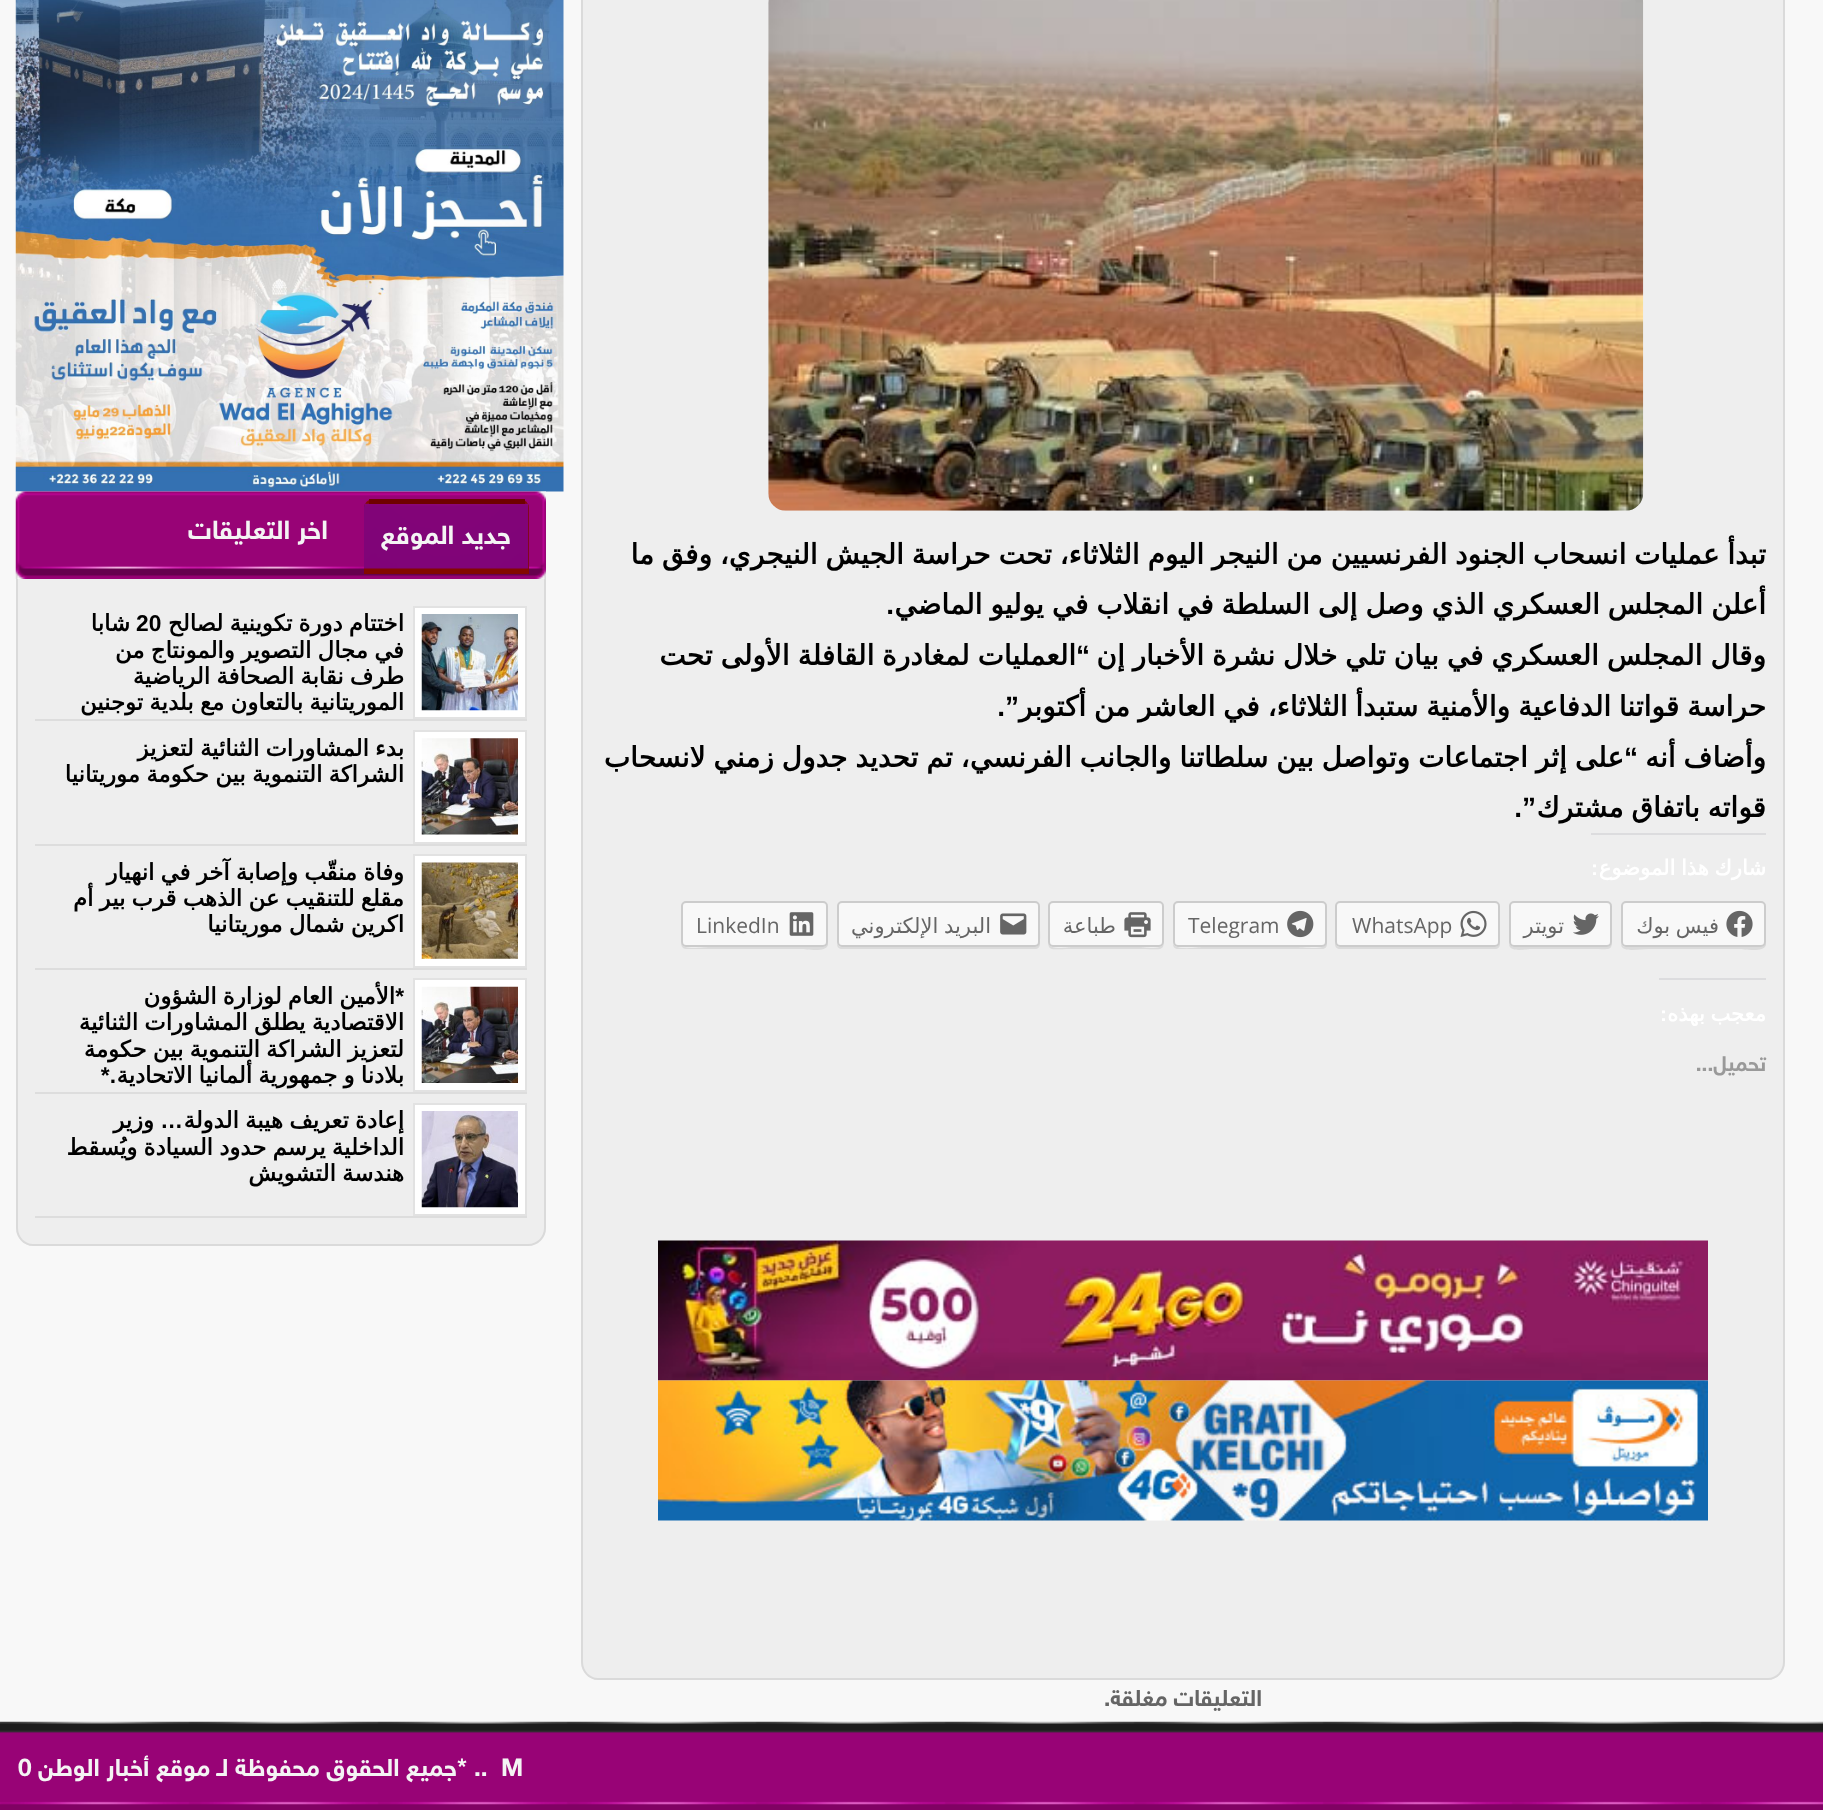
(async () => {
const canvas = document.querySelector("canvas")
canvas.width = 1823
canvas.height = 1810
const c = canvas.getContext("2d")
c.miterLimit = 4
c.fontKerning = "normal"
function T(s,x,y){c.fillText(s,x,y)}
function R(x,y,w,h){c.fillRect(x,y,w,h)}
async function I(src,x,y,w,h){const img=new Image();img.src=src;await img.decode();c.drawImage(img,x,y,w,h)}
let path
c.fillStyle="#f8f8f8"
R(0,0,1823,1810)
c.fillStyle="#eee"
path = new Path2D("M581-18h1204v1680c0 10-8 18-18 18h-1168c-10 0-18-8-18-18z")
c.fill(path)
c.fillStyle="#dadada"
path = new Path2D("M581-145h1204v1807c0 10-8 18-17 18h-1170c-9 0-17-8-17-18zm2 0h1200v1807c0 9-7 16-15 16h-1170c-8 0-15-7-15-16z")
c.fill(path,"evenodd")
await I("1.png",768,0,876,511)
c.wordSpacing="-1.1px"
c.direction="rtl"
c.font="bold 28px DejaVu Sans"
c.fillStyle="#000"
T("تبدأ عمليات انسحاب الجنود الفرنسيين من النيجر اليوم الثلاثاء، تحت حراسة الجيش النيجري، وفق ما",1766,564)
T("أعلن المجلس العسكري الذي وصل إلى السلطة في انقلاب في يوليو الماضي",1766,614)
c.wordSpacing="0px"
c.font="bold 28px Liberation Sans"
T(".",894,614)
c.wordSpacing="-1px"
c.font="bold 28px DejaVu Sans"
T("وقال المجلس العسكري في بيان تلي خلال نشرة الأخبار إن",1766,665)
T("العمليات لمغادرة القافلة الأولى تحت",1076,665)
c.wordSpacing="0px"
c.font="bold 28px Liberation Sans"
T("“",1090,665)
c.wordSpacing="-1.1px"
c.font="bold 28px DejaVu Sans"
T("حراسة قواتنا الدفاعية والأمنية ستبدأ الثلاثاء، في العاشر من أكتوبر",1766,716)
c.wordSpacing="0px"
c.font="bold 28px Liberation Sans"
T("”.",1019,716)
c.wordSpacing="-1px"
c.font="bold 28px DejaVu Sans"
T("وأضاف أنه",1766,767)
T("على إثر اجتماعات وتواصل بين سلطاتنا والجانب الفرنسي، تم تحديد جدول زمني لانسحاب",1624,767)
c.wordSpacing="0px"
c.font="bold 28px Liberation Sans"
T("“",1638,767)
c.wordSpacing="-1.1px"
c.font="bold 28px DejaVu Sans"
T("قواته باتفاق مشترك",1766,817)
c.wordSpacing="0px"
c.font="bold 28px Liberation Sans"
T("”.",1536,817)
c.fillStyle="#dcdcde"
R(1591,833,175,2)
c.wordSpacing="-1px"
c.font="bold 21px DejaVu Sans"
c.fillStyle="#fff"
T("شارك هذا الموضوع",1766,875)
c.wordSpacing="0px"
c.font="bold 21px Liberation Sans"
T(":",1598,875)
c.fillStyle="#dbdbdb"
path = new Path2D("M1621 944c0 9 17 5 27 5h90c7 0 26 4 28-4v-39v36c0 2-3 5-6 5h-134c-2 0-4-1-5-3z")
c.fill(path)
c.fillStyle="#f8f8f8"
c.beginPath()
c.roundRect(1622,902,143,44,4)
c.fill()
c.strokeStyle="#ccc"
c.lineWidth=2
c.stroke()
await I("2.png",1726,910,27,27)
c.wordSpacing="-1px"
c.font="21px DejaVu Sans"
c.fillStyle="#656565"
T("فيس بوك",1719,933)
c.fillStyle="#dbdbdb"
path = new Path2D("M1509 944c0 9 18 5 21 5h62c22 0 20 3 20-17v-26v37l-2 2c-1 1-2 2-4 2h-93l-3-2z")
c.fill(path)
c.fillStyle="#f8f8f8"
c.beginPath()
c.roundRect(1510,902,101,44,4)
c.fill()
c.stroke()
await I("3.png",1573,913,26,22)
c.wordSpacing="0px"
c.fillStyle="#656565"
T("تويتر",1564,933)
c.fillStyle="#dbdbdb"
path = new Path2D("M1335 906v38c0 3 2 5 5 5h155c3 0 5-2 5-5v-38v30c0 4 1 11-6 11h-154c-6 0-5-7-5-11z")
c.fill(path)
c.fillStyle="#f8f8f8"
c.beginPath()
c.roundRect(1336,902,163,44,4)
c.fill()
c.stroke()
await I("4.png",1460,910,27,27)
c.direction="ltr"
c.font="21px Open Sans"
c.fillStyle="#656565"
T("WhatsApp",1352,933)
c.fillStyle="#dbdbdb"
path = new Path2D("M1173 944c0 3 2 5 5 5h144c3 0 5-2 5-5v-36l-1-2v37c-1 8-22 4-29 4h-95c-2 0-26 4-29-3z")
c.fill(path)
c.fillStyle="#f8f8f8"
c.beginPath()
c.roundRect(1174,902,152,44,4)
c.fill()
c.stroke()
await I("5.png",1287,910,27,28)
c.fillStyle="#656565"
T("Telegram",1188,933)
c.fillStyle="#dbdbdb"
path = new Path2D("M1048 906v26c0 21-1 17 23 17h70c24 0 23 4 23-17v-26v37c-2 8-22 4-23 4h-70c-1 0-21 4-23-4z")
c.fill(path)
c.fillStyle="#f8f8f8"
c.beginPath()
c.roundRect(1049,902,114,44,4)
c.fill()
c.stroke()
await I("6.png",1124,912,27,26)
c.direction="rtl"
c.font="21px DejaVu Sans"
c.fillStyle="#656565"
T("طباعة",1116,933)
c.fillStyle="#dbdbdb"
path = new Path2D("M837 944c0 3 2 5 5 5h193c3 0 5-2 5-5v-36l-1-2l1 24c0 4 2 17-6 17h-192c-2 0-4-1-5-3z")
c.fill(path)
c.fillStyle="#f8f8f8"
c.beginPath()
c.roundRect(838,902,201,44,4)
c.fill()
c.stroke()
await I("7.png",1000,913,27,22)
c.wordSpacing="-1px"
c.fillStyle="#656565"
T("البريد الإلكتروني",991,933)
c.fillStyle="#dbdbdb"
path = new Path2D("M681 943c0 3 2 6 5 6h114c7 0 26 4 28-4v-39v30c0 4 1 11-6 11h-113c-5 0-26 4-28-4z")
c.fill(path)
c.fillStyle="#f8f8f8"
c.beginPath()
c.roundRect(682,902,145,44,4)
c.fill()
c.stroke()
await I("8.png",789,912,25,24)
c.wordSpacing="0px"
c.direction="ltr"
c.font="21px Open Sans"
c.fillStyle="#656565"
T("LinkedIn",696,933)
c.fillStyle="#dcdcde"
R(1659,978,107,2)
c.wordSpacing="-1px"
c.direction="rtl"
c.font="bold 21px DejaVu Sans"
c.fillStyle="#fff"
T("معجب بهذه",1766,1021)
c.wordSpacing="0px"
c.font="bold 21px Liberation Sans"
T(":",1667,1021)
c.font="bold 21px 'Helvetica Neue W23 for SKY'"
c.fillStyle="#999"
T("تحميل...",1766,1071)
await I("9.png",658,1240,1050,141)
await I("10.png",658,1380,1050,141)
c.font="bold 22.75px 'Helvetica Neue W23 for SKY'"
c.fillStyle="#656565"
T("التعليقات مغلقة.",1262,1706)
await I("11.png",15,0,549,492)
await I("12.png",15,491,531,88)
c.fillStyle="#830900"
c.beginPath()
c.roundRect(364,499,165,75,[9,9,0,0])
c.fill()
await I("13.png",364,503,165,66)
c.fillStyle="#6f0100"
R(369,499,156,5)
c.font="bold 26.25px 'Helvetica Neue W23 for SKY'"
c.fillStyle="#f4f4f4"
T("جديد الموقع",511,544)
T("اخر التعليقات",328,539)
c.fillStyle="#eee"
c.beginPath()
c.roundRect(16,579,530,667,[0,0,18,18])
c.fill()
c.fillStyle="#dadada"
path = new Path2D("M16 579h530v649c0 10-8 18-18 18h-495c-9 0-17-8-17-18zm2 0h526v649c0 9-7 16-16 16h-495c-8 0-15-7-15-16z")
c.fill(path,"evenodd")
c.fillStyle="#ddd"
R(35,719,492,2)
c.fillStyle="#fff"
c.beginPath()
c.rect(414,607,112,111)
c.fill()
c.strokeStyle="#e2e2e2"
c.stroke()
await I("14.png",421,614,97,97)
c.wordSpacing="-1px"
c.font="bold 22.75px DejaVu Sans"
c.fillStyle="#000"
T("اختتام دورة تكوينية لصالح",404,631)
c.wordSpacing="0px"
c.direction="ltr"
c.font="bold 22.75px Liberation Sans"
T("20",136,631)
c.direction="rtl"
c.font="bold 22.75px DejaVu Sans"
T("شابا",130,631)
c.wordSpacing="-1px"
T("في مجال التصوير والمونتاج من",404,658)
T("طرف نقابة الصحافة الرياضية",404,684)
T("الموريتانية بالتعاون مع بلدية توجنين",404,710)
c.fillStyle="#ddd"
R(35,844,492,2)
c.fillStyle="#fff"
c.beginPath()
c.rect(414,731,112,112)
c.fill()
c.stroke()
await I("15.png",421,738,97,97)
c.fillStyle="#000"
T("بدء المشاورات الثنائية لتعزيز",404,756)
T("الشراكة التنموية بين حكومة موريتانيا",404,782)
c.fillStyle="#ddd"
R(35,968,492,2)
c.fillStyle="#fff"
c.beginPath()
c.rect(414,855,112,112)
c.fill()
c.stroke()
await I("16.png",421,862,97,97)
c.fillStyle="#000"
T("وفاة منقّب وإصابة آخر في انهيار",404,880)
T("مقلع للتنقيب عن الذهب قرب بير أم",404,906)
T("اكرين شمال موريتانيا",404,932)
c.fillStyle="#ddd"
R(35,1092,492,2)
c.fillStyle="#fff"
c.beginPath()
c.rect(414,979,112,112)
c.fill()
c.stroke()
await I("17.png",421,986,97,97)
c.fillStyle="#000"
T("الأمين العام لوزارة الشؤون",395,1004)
c.wordSpacing="0px"
c.font="bold 22.75px Liberation Sans"
T("*",404,1004)
c.wordSpacing="-1px"
c.font="bold 22.75px DejaVu Sans"
T("الاقتصادية يطلق المشاورات الثنائية",404,1030)
T("لتعزيز الشراكة التنموية بين حكومة",404,1057)
T("بلادنا و جمهورية ألمانيا الاتحادية",404,1083)
c.wordSpacing="0px"
c.font="bold 22.75px Liberation Sans"
T(".*",116,1083)
c.fillStyle="#ddd"
R(35,1216,492,2)
c.fillStyle="#fff"
c.beginPath()
c.rect(414,1104,112,111)
c.fill()
c.stroke()
await I("18.png",421,1111,97,97)
c.wordSpacing="-1px"
c.font="bold 22.75px DejaVu Sans"
c.fillStyle="#000"
T("إعادة تعريف هيبة الدولة",404,1128)
c.wordSpacing="0px"
c.font="bold 22.75px Liberation Sans"
T("…",183,1128)
c.font="bold 22.75px DejaVu Sans"
T("وزير",154,1128)
c.wordSpacing="-1px"
T("الداخلية يرسم حدود السيادة ويُسقط",404,1155)
T("هندسة التشويش",404,1181)
await I("19.png",0,1721,1823,89)
c.wordSpacing="0px"
c.direction="ltr"
c.font="bold 24.5px 'Helvetica Neue W23 for SKY'"
c.fillStyle="#f4f4f4"
T("M",501,1776)
T("..",474,1776)
T("*",457,1776)
c.direction="rtl"
T("جميع الحقوق محفوظة لـ",457,1776)
T("موقع أخبار الوطن",210,1776)
c.direction="ltr"
T("0",18,1776)
})()
